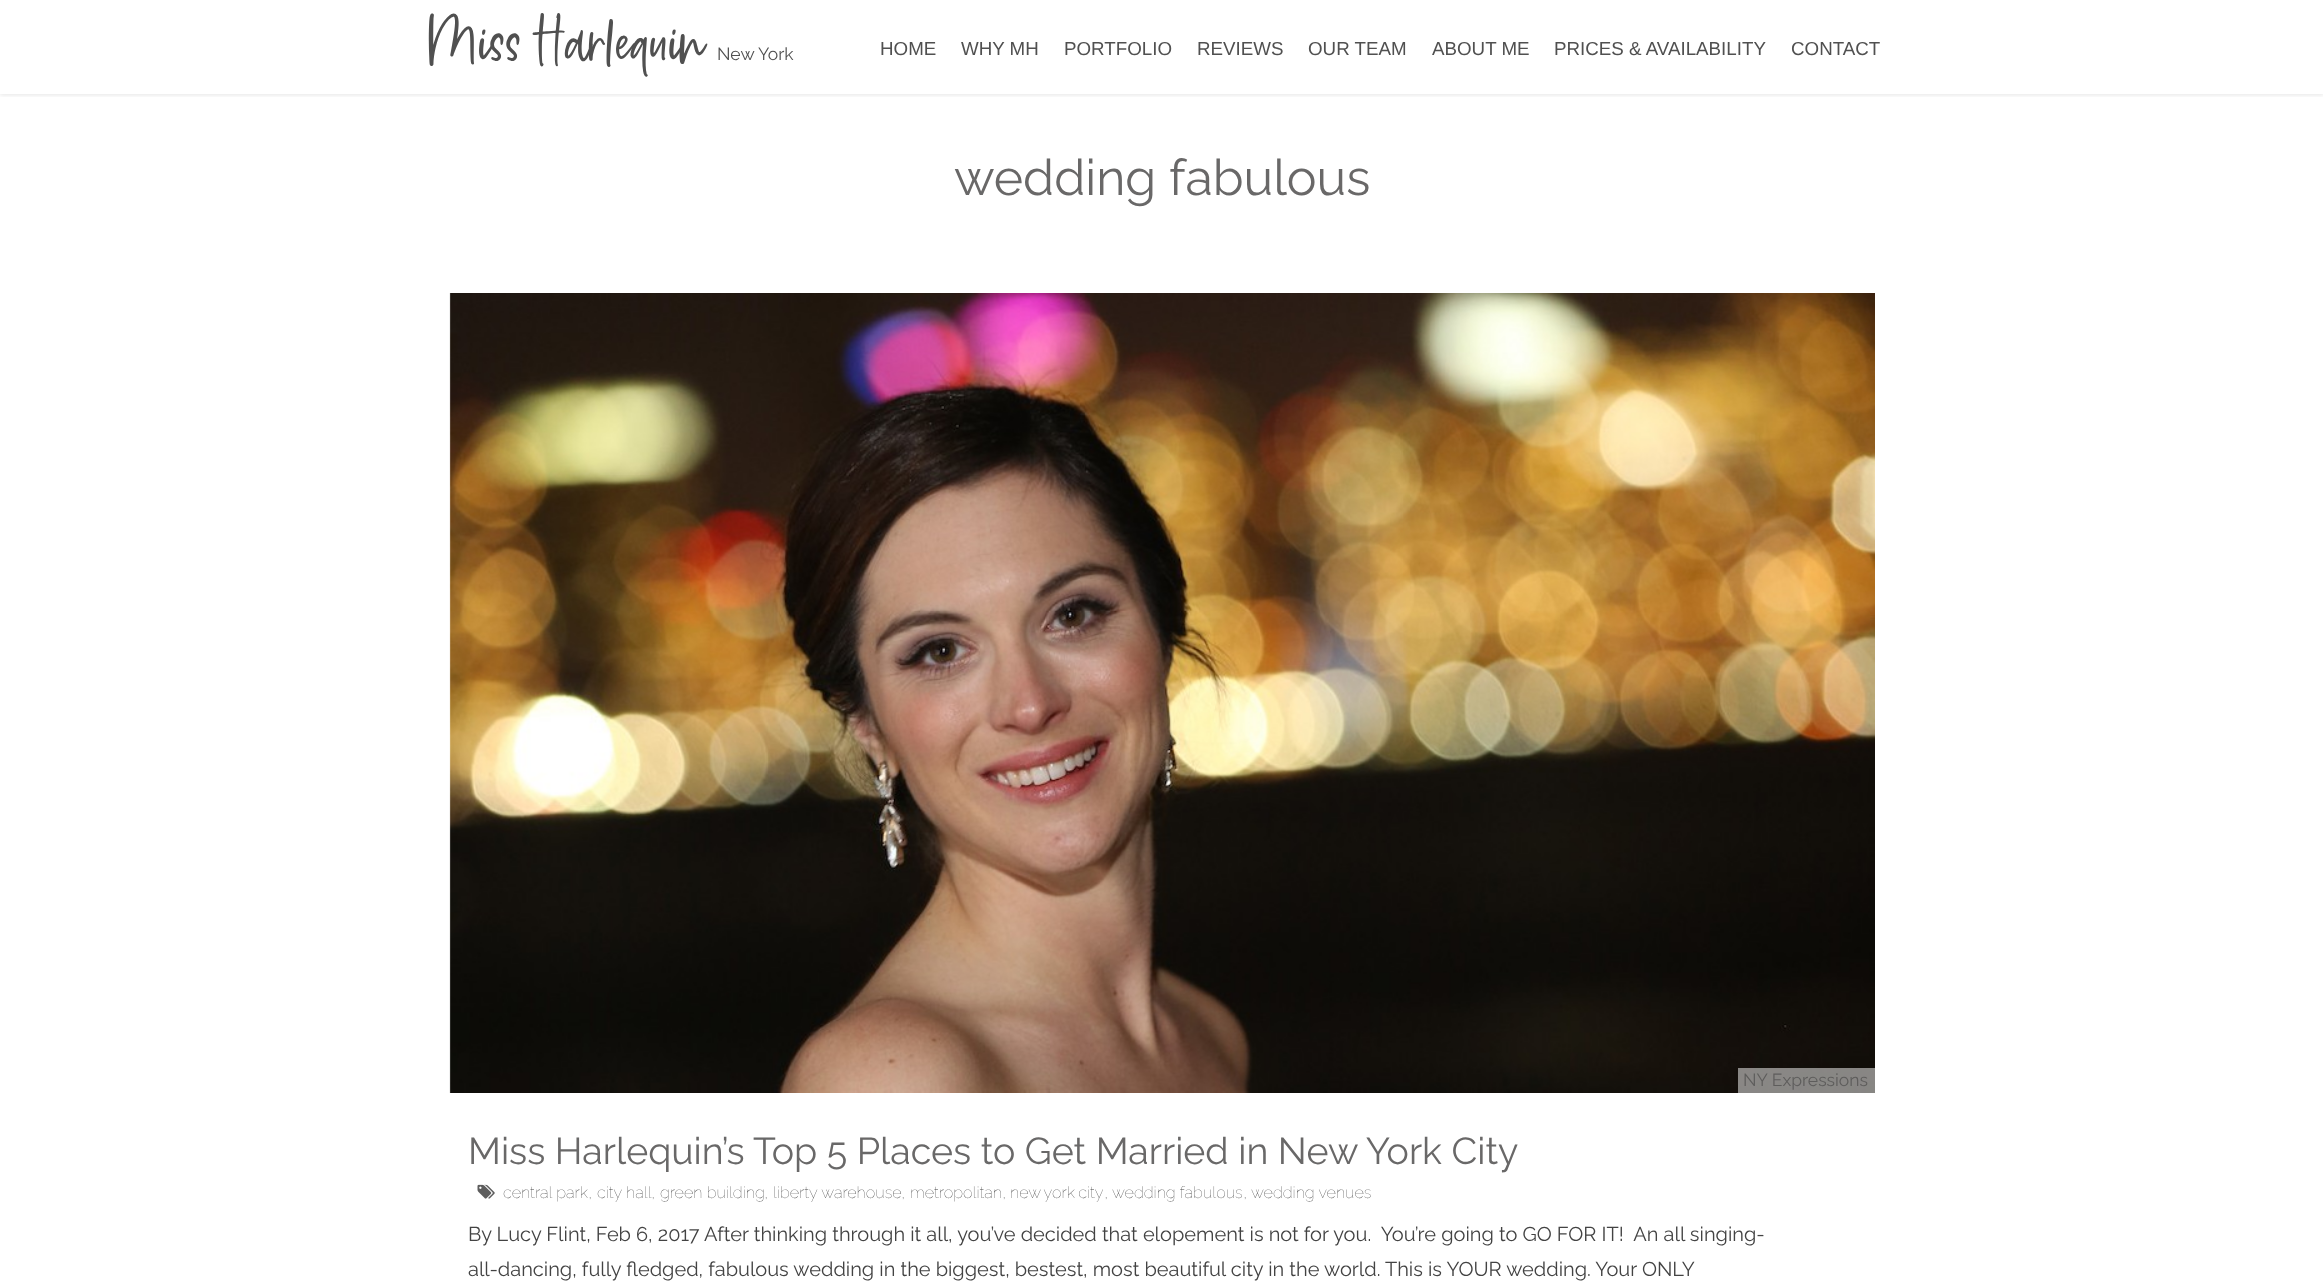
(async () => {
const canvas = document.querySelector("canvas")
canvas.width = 2323
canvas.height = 1282
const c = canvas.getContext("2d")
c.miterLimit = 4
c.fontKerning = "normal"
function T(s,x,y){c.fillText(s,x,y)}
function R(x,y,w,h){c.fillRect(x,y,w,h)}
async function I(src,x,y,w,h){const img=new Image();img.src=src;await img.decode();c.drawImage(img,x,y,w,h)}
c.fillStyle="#fff"
R(0,0,2323,1282)
c.save()
c.beginPath()
c.rect(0,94,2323,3)
c.clip()
c.fillStyle="#0000001a"
c.filter="blur(2.5px)"
c.beginPath()
c.rect(0,1,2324,94)
c.fill()
c.filter="none"
c.restore()
c.fillStyle="#fffffff7"
R(0,93,2323,1)
c.font="75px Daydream"
c.fillStyle="#505050"
T("Miss Harlequin",431,66)
c.font="17.5px Raleway"
T("New York",717,60)
c.font="18.75px Arimo"
T("HOME",880,55)
T("WHY MH",961,55)
T("PORTFOLIO",1064,55)
T("REVIEWS",1197,55)
T("OUR TEAM",1308,55)
T("ABOUT ME",1432,55)
T("PRICES & AVAILABILITY",1554,55)
T("CONTACT",1791,55)
c.font="50px Raleway"
c.fillStyle="#696868"
T("wedding fabulous",954,195)
await I("1.png",449,293,1426,800)
c.fillStyle="#ffffff80"
R(1738,1068,137,25)
c.font="17.5px Raleway"
c.fillStyle="#5e5d5c"
T("NY Expressions",1743,1086)
c.font="37.5px Raleway"
c.fillStyle="#696868"
T("Miss Harlequin’s Top 5 Places to Get Married in New York City",468,1164)
await I("2.png",477,1184,18,15)
c.font="100 16.25px Raleway"
c.fillStyle="#434343"
T("central park",503,1198)
c.fillStyle="#333"
T(",",588,1198)
c.fillStyle="#434343"
T("city hall",597,1198)
c.fillStyle="#333"
T(",",651,1198)
c.fillStyle="#434343"
T("green building",660,1198)
c.fillStyle="#333"
T(",",764,1198)
c.fillStyle="#434343"
T("liberty warehouse",773,1198)
c.fillStyle="#333"
T(",",901,1198)
c.fillStyle="#434343"
T("metropolitan",910,1198)
c.fillStyle="#333"
T(",",1002,1198)
c.wordSpacing="-1px"
c.fillStyle="#434343"
T("new york city",1010,1198)
c.wordSpacing="0px"
c.fillStyle="#333"
T(",",1104,1198)
c.fillStyle="#434343"
T("wedding fabulous",1112,1198)
c.fillStyle="#333"
T(",",1243,1198)
c.fillStyle="#434343"
T("wedding venues",1251,1198)
c.font="20px Raleway"
T("By Lucy Flint, Feb 6, 2017 After thinking through it all, you’ve decided that elopement is not for you.  You’re going to GO FOR IT!  An all singing-",468,1241)
T("all-dancing, fully fledged, fabulous wedding in the biggest, bestest, most beautiful city in the world. This is YOUR wedding. Your ONLY",468,1276)
})()
